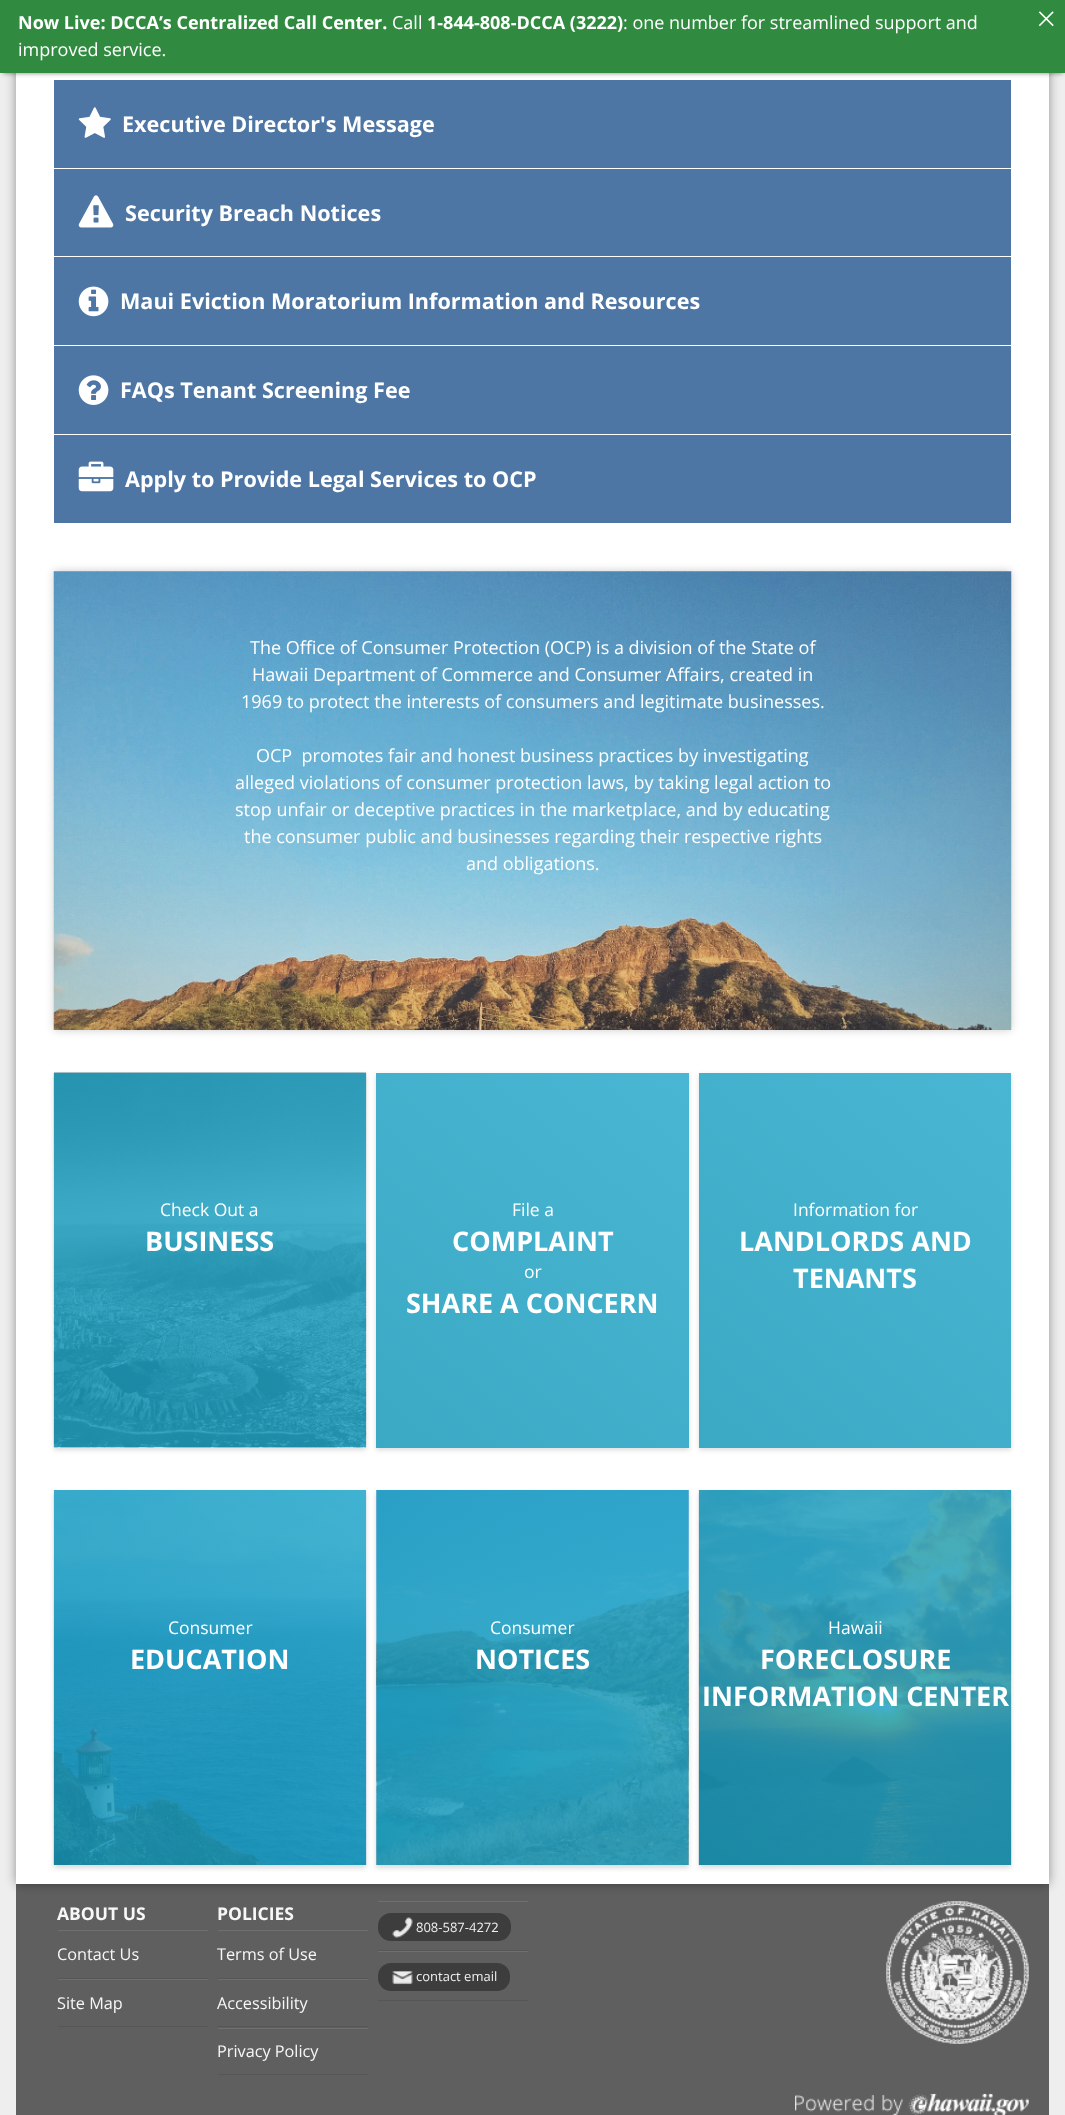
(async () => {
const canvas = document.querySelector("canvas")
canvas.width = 1065
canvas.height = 2115
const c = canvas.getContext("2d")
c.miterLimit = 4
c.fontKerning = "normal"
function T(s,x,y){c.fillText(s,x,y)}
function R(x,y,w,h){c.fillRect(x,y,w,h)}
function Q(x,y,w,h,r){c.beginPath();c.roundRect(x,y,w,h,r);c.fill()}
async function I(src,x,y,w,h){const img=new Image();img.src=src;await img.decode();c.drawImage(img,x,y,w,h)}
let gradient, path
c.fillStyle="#eee"
R(0,0,1065,2115)
c.save()
path = new Path2D("M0 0h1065v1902h-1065zm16-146h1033v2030h-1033z")
c.clip(path,"evenodd")
c.fillStyle="#00000066"
c.filter="blur(5.5px)"
c.beginPath()
c.rect(16,-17,1033,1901)
c.fill()
c.filter="none"
c.restore()
c.fillStyle="#fffffff5"
R(16,73,1033,1811)
c.fillStyle="#4d76a4"
R(54,80,957,88)
c.fillStyle="#00000080"
c.filter="blur(2.5px)"
c.beginPath()
c.rect(3,5,1060,68)
c.fill()
c.filter="none"
c.fillStyle="#308b41"
R(0,0,1065,73)
c.font="bold 18px Open Sans"
c.fillStyle="#fff"
T("Now Live: DCCA’s Centralized Call Center.",18,29)
c.font="18px Open Sans"
T("Call",392,29)
c.font="bold 18px Open Sans"
T("1-844-808-DCCA (3222)",427,29)
c.font="18px Open Sans"
T(": one number for streamlined support and",623,29)
T("improved service.",18,56)
await I("1.png",1038,11,16,16)
await I("2.png",78,107,33,31)
c.font="bold 21.6px Open Sans"
T("Executive Director's Message",122,132)
c.fillStyle="#4d76a4"
R(54,169,957,176)
c.fillStyle="#fff"
R(54,256,957,1)
await I("3.png",78,195,36,33)
T("Security Breach Notices",125,221)
await I("4.png",78,286,31,31)
T("Maui Eviction Moratorium Information and Resources",120,309)
c.fillStyle="#4d76a4"
R(54,346,957,88)
await I("5.png",78,375,31,30)
c.fillStyle="#fff"
T("FAQs Tenant Screening Fee",120,398)
c.fillStyle="#4d76a4"
R(54,435,957,88)
await I("6.png",78,461,36,31)
c.fillStyle="#fff"
T("Apply to Provide Legal Services to OCP",125,487)
c.fillStyle="#00000033"
c.filter="blur(4px)"
c.beginPath()
c.rect(54,571,957,459)
c.fill()
c.filter="none"
await I("7.png",53,571,959,459)
c.font="18px Open Sans"
c.fillStyle="#fff"
T("The Office of Consumer Protection (OCP) is a division of the State of",250,654)
T("Hawaii Department of Commerce and Consumer Affairs, created in",252,681)
T("1969 to protect the interests of consumers and legitimate businesses.",241,708)
T("OCP  promotes fair and honest business practices by investigating",256,762)
T("alleged violations of consumer protection laws, by taking legal action to",235,789)
T("stop unfair or deceptive practices in the marketplace, and by educating",235,816)
T("the consumer public and businesses regarding their respective rights",244,843)
T("and obligations.",466,870)
c.fillStyle="#00000024"
c.filter="blur(2.5px)"
c.beginPath()
c.rect(54,1075,312,375)
c.fill()
c.filter="none"
c.fillStyle="#fff"
R(54,1447,312,1)
await I("8.png",53,1072,314,376)
c.font="17.5px Open Sans"
T("Check Out a",160,1216)
c.font="bold 27px Open Sans"
T("BUSINESS",145,1251)
c.fillStyle="#00000024"
c.filter="blur(2.5px)"
c.beginPath()
c.rect(376,1075,313,375)
c.fill()
c.filter="none"
gradient = c.createLinearGradient(689,1073,376,1447)
gradient.addColorStop(0,"#49b7d3")
gradient.addColorStop(1,"#3ba8c4")
c.fillStyle = gradient
R(376,1073,313,375)
c.font="17.5px Open Sans"
c.fillStyle="#fff"
T("File a",512,1216)
c.font="bold 27px Open Sans"
T("COMPLAINT",452,1251)
c.font="17.5px Open Sans"
T("or",524,1278)
c.font="bold 27px Open Sans"
T("SHARE A CONCERN",406,1313)
c.fillStyle="#00000024"
c.filter="blur(2.5px)"
c.beginPath()
c.rect(699,1075,312,375)
c.fill()
c.filter="none"
gradient = c.createLinearGradient(1012,1073,698,1447)
gradient.addColorStop(0,"#49b7d3")
gradient.addColorStop(1,"#3ba8c4")
c.fillStyle = gradient
R(699,1073,312,375)
c.font="17.5px Open Sans"
c.fillStyle="#fff"
T("Information for",793,1216)
c.font="bold 27px Open Sans"
T("LANDLORDS AND",739,1251)
T("TENANTS",793,1288)
c.fillStyle="#00000024"
c.filter="blur(2.5px)"
c.beginPath()
c.rect(54,1493,312,375)
c.fill()
c.filter="none"
await I("9.png",53,1490,314,375)
c.font="17.5px Open Sans"
c.fillStyle="#fff"
T("Consumer",168,1634)
c.font="bold 27px Open Sans"
T("EDUCATION",130,1669)
c.fillStyle="#00000024"
c.filter="blur(2.5px)"
c.beginPath()
c.rect(376,1493,313,375)
c.fill()
c.filter="none"
await I("10.png",376,1490,313,375)
c.font="17.5px Open Sans"
c.fillStyle="#fff"
T("Consumer",490,1634)
c.font="bold 27px Open Sans"
T("NOTICES",475,1669)
c.fillStyle="#00000024"
c.filter="blur(2.5px)"
c.beginPath()
c.rect(699,1493,312,375)
c.fill()
c.filter="none"
await I("11.png",698,1490,314,375)
c.font="17.5px Open Sans"
c.fillStyle="#fff"
T("Hawaii",828,1634)
c.font="bold 27px Open Sans"
T("FORECLOSURE",760,1669)
T("INFORMATION CENTER",702,1706)
c.fillStyle="#00000099"
R(16,1884,1033,231)
await I("12.png",886,1901,143,143)
c.font="bold 17.5px Open Sans"
c.fillStyle="#f7f7f7"
T("ABOUT US",57,1920)
c.fillStyle="#6f6f6f"
R(58,1930,150,1)
c.fillStyle="#565656"
R(58,1978,150,1)
c.font="16.25px Open Sans"
c.fillStyle="#f7f7f7"
T("Contact Us",57,1960)
c.fillStyle="#6f6f6f"
R(58,1979,150,1)
c.fillStyle="#565656"
R(58,2026,150,1)
c.fillStyle="#f7f7f7"
T("Site Map",57,2009)
c.font="bold 17.5px Open Sans"
T("POLICIES",217,1920)
c.fillStyle="#6f6f6f"
R(218,1930,150,1)
c.fillStyle="#565656"
R(218,1978,150,1)
c.font="16.25px Open Sans"
c.fillStyle="#f7f7f7"
T("Terms of Use",217,1960)
c.fillStyle="#6f6f6f"
R(218,1979,150,1)
c.fillStyle="#565656"
R(218,2026,150,1)
c.fillStyle="#f7f7f7"
T("Accessibility",217,2009)
c.fillStyle="#6f6f6f"
R(218,2028,150,1)
c.fillStyle="#565656"
R(218,2074,150,1)
c.fillStyle="#f7f7f7"
T("Privacy Policy",217,2057)
c.fillStyle="#6f6f6f"
R(378,1901,150,1)
c.fillStyle="#565656"
R(378,1950,150,1)
c.fillStyle="#3d3d3d"
Q(378,1913,133,28,13)
await I("13.png",392,1917,21,21)
c.font="13px Open Sans"
c.fillStyle="#efefef"
T("808-587-4272",416,1932)
c.fillStyle="#6f6f6f"
R(378,1951,150,1)
c.fillStyle="#565656"
R(378,2000,150,1)
c.fillStyle="#3d3d3d"
Q(378,1963,132,28,13)
await I("14.png",392,1971,21,14)
c.fillStyle="#efefef"
T("contact email",416,1981)
await I("15.png",795,2093,234,22)
})()
